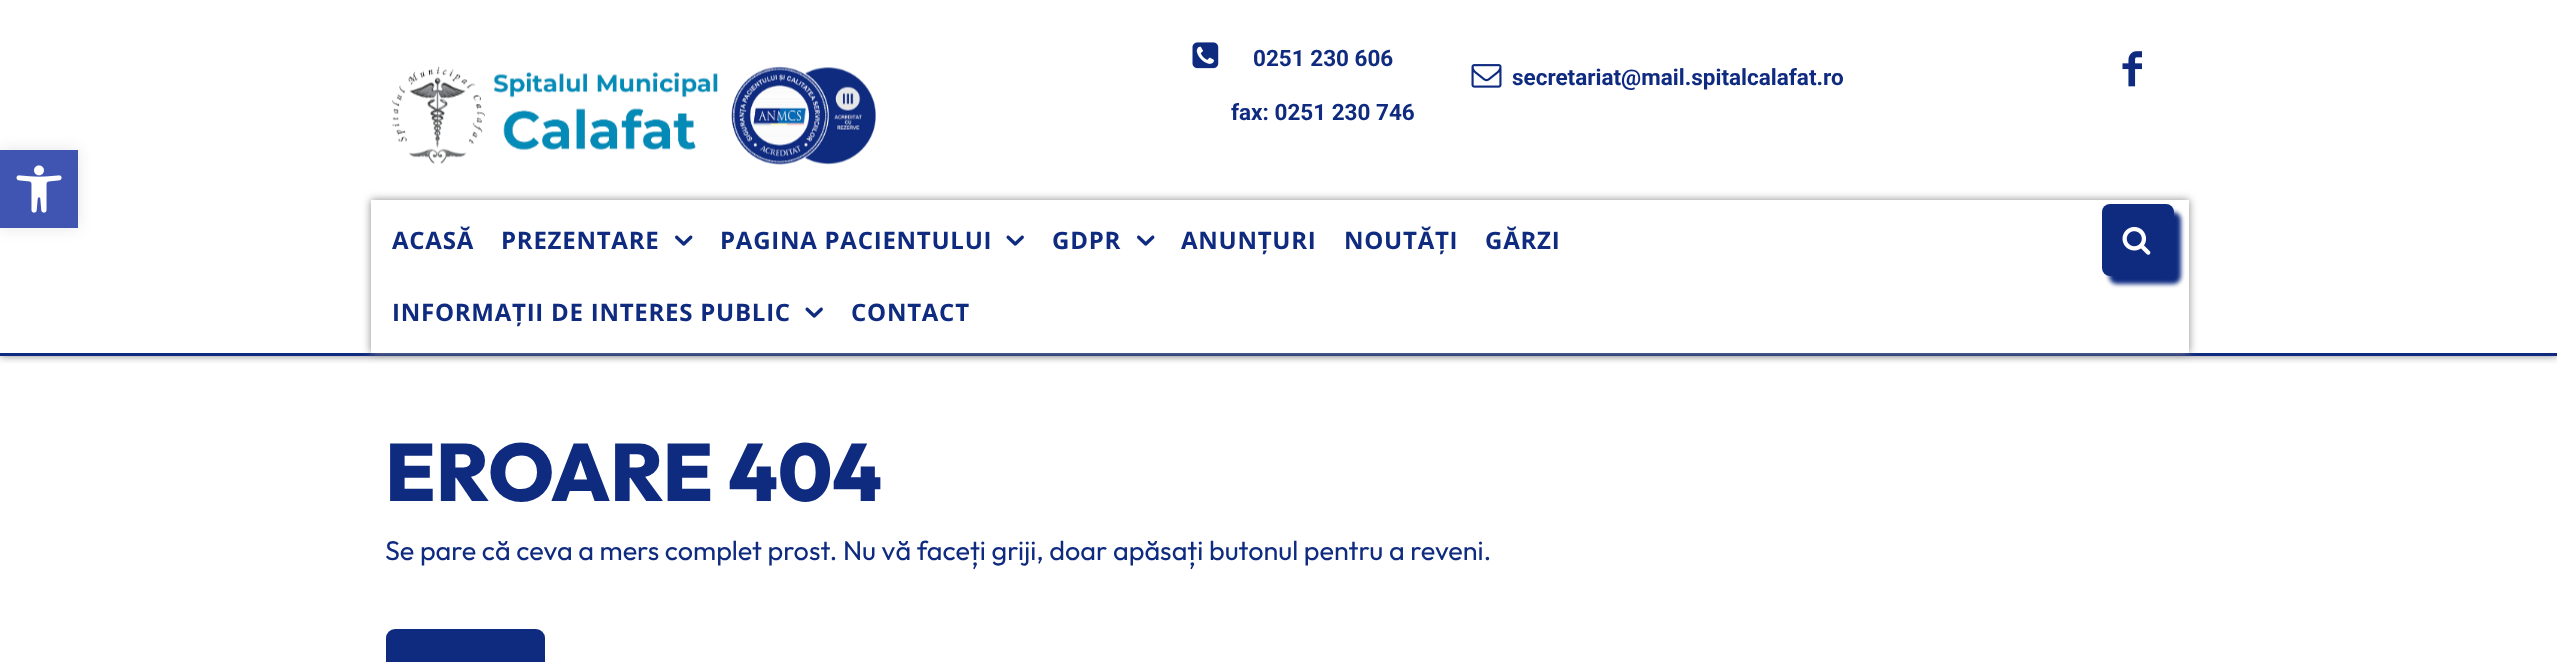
(async () => {
const canvas = document.querySelector("canvas")
canvas.width = 2557
canvas.height = 662
const c = canvas.getContext("2d")
c.miterLimit = 4
c.fontKerning = "normal"
function T(s,x,y){c.fillText(s,x,y)}
function R(x,y,w,h){c.fillRect(x,y,w,h)}
function Q(x,y,w,h,r){c.beginPath();c.roundRect(x,y,w,h,r);c.fill()}
async function I(src,x,y,w,h){const img=new Image();img.src=src;await img.decode();c.drawImage(img,x,y,w,h)}
let path
c.fillStyle="#fff"
R(0,0,2557,662)
c.fillStyle="#0000001a"
c.filter="blur(7.5px)"
c.beginPath()
c.rect(0,150,78,78)
c.fill()
c.filter="none"
c.save()
c.beginPath()
c.rect(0,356,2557,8)
c.clip()
c.fillStyle="#888"
c.filter="blur(4px)"
c.beginPath()
c.rect(0,0,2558,356)
c.fill()
c.filter="none"
c.restore()
c.fillStyle="#4054b2"
R(0,150,78,78)
await I("1.png",16,165,46,48)
c.fillStyle="#0f2b80"
R(0,353,2557,3)
await I("2.png",392,66,484,99)
await I("3.png",1192,42,27,27)
c.font="bold 22.5px Roboto"
T("0251 230 606",1253,66)
T("fax: 0251 230 746",1231,120)
await I("4.png",1471,64,31,24)
T("secretariat@mail.spitalcalafat.ro",1512,85)
await I("5.png",2122,51,20,36)
c.save()
path = new Path2D("M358 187h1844v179h-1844zm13 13h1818v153h-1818z")
c.clip(path,"evenodd")
c.fillStyle="#888"
c.filter="blur(4px)"
c.beginPath()
c.rect(371,200,1818,153)
c.fill()
c.filter="none"
c.restore()
c.letterSpacing="0.75px"
c.font="bold 24px Open Sans"
T("ACASĂ",392,249)
T("PREZENTARE",501,249)
await I("6.png",675,235,18,11)
T("PAGINA PACIENTULUI",720,249)
await I("7.png",1006,235,18,11)
T("GDPR",1052,249)
await I("6.png",1137,235,18,11)
T("ANUNȚURI",1181,249)
T("NOUTĂȚI",1344,249)
T("GĂRZI",1485,249)
T("INFORMAȚII DE INTERES PUBLIC",392,321)
await I("7.png",805,307,18,11)
T("CONTACT",851,321)
c.filter="blur(2px)"
c.beginPath()
c.roundRect(2109,212,72,72,8)
c.fill()
c.filter="none"
Q(2102,204,72,72,8)
await I("8.png",2122,226,29,29)
c.letterSpacing="0px"
c.font="800 81px Outfit"
T("EROARE 404",385,501)
c.font="27px Outfit"
T("Se pare că ceva a mers complet prost. Nu vă faceți griji, doar apăsați butonul pentru a reveni.",385,560)
Q(386,629,159,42,9)
})()
